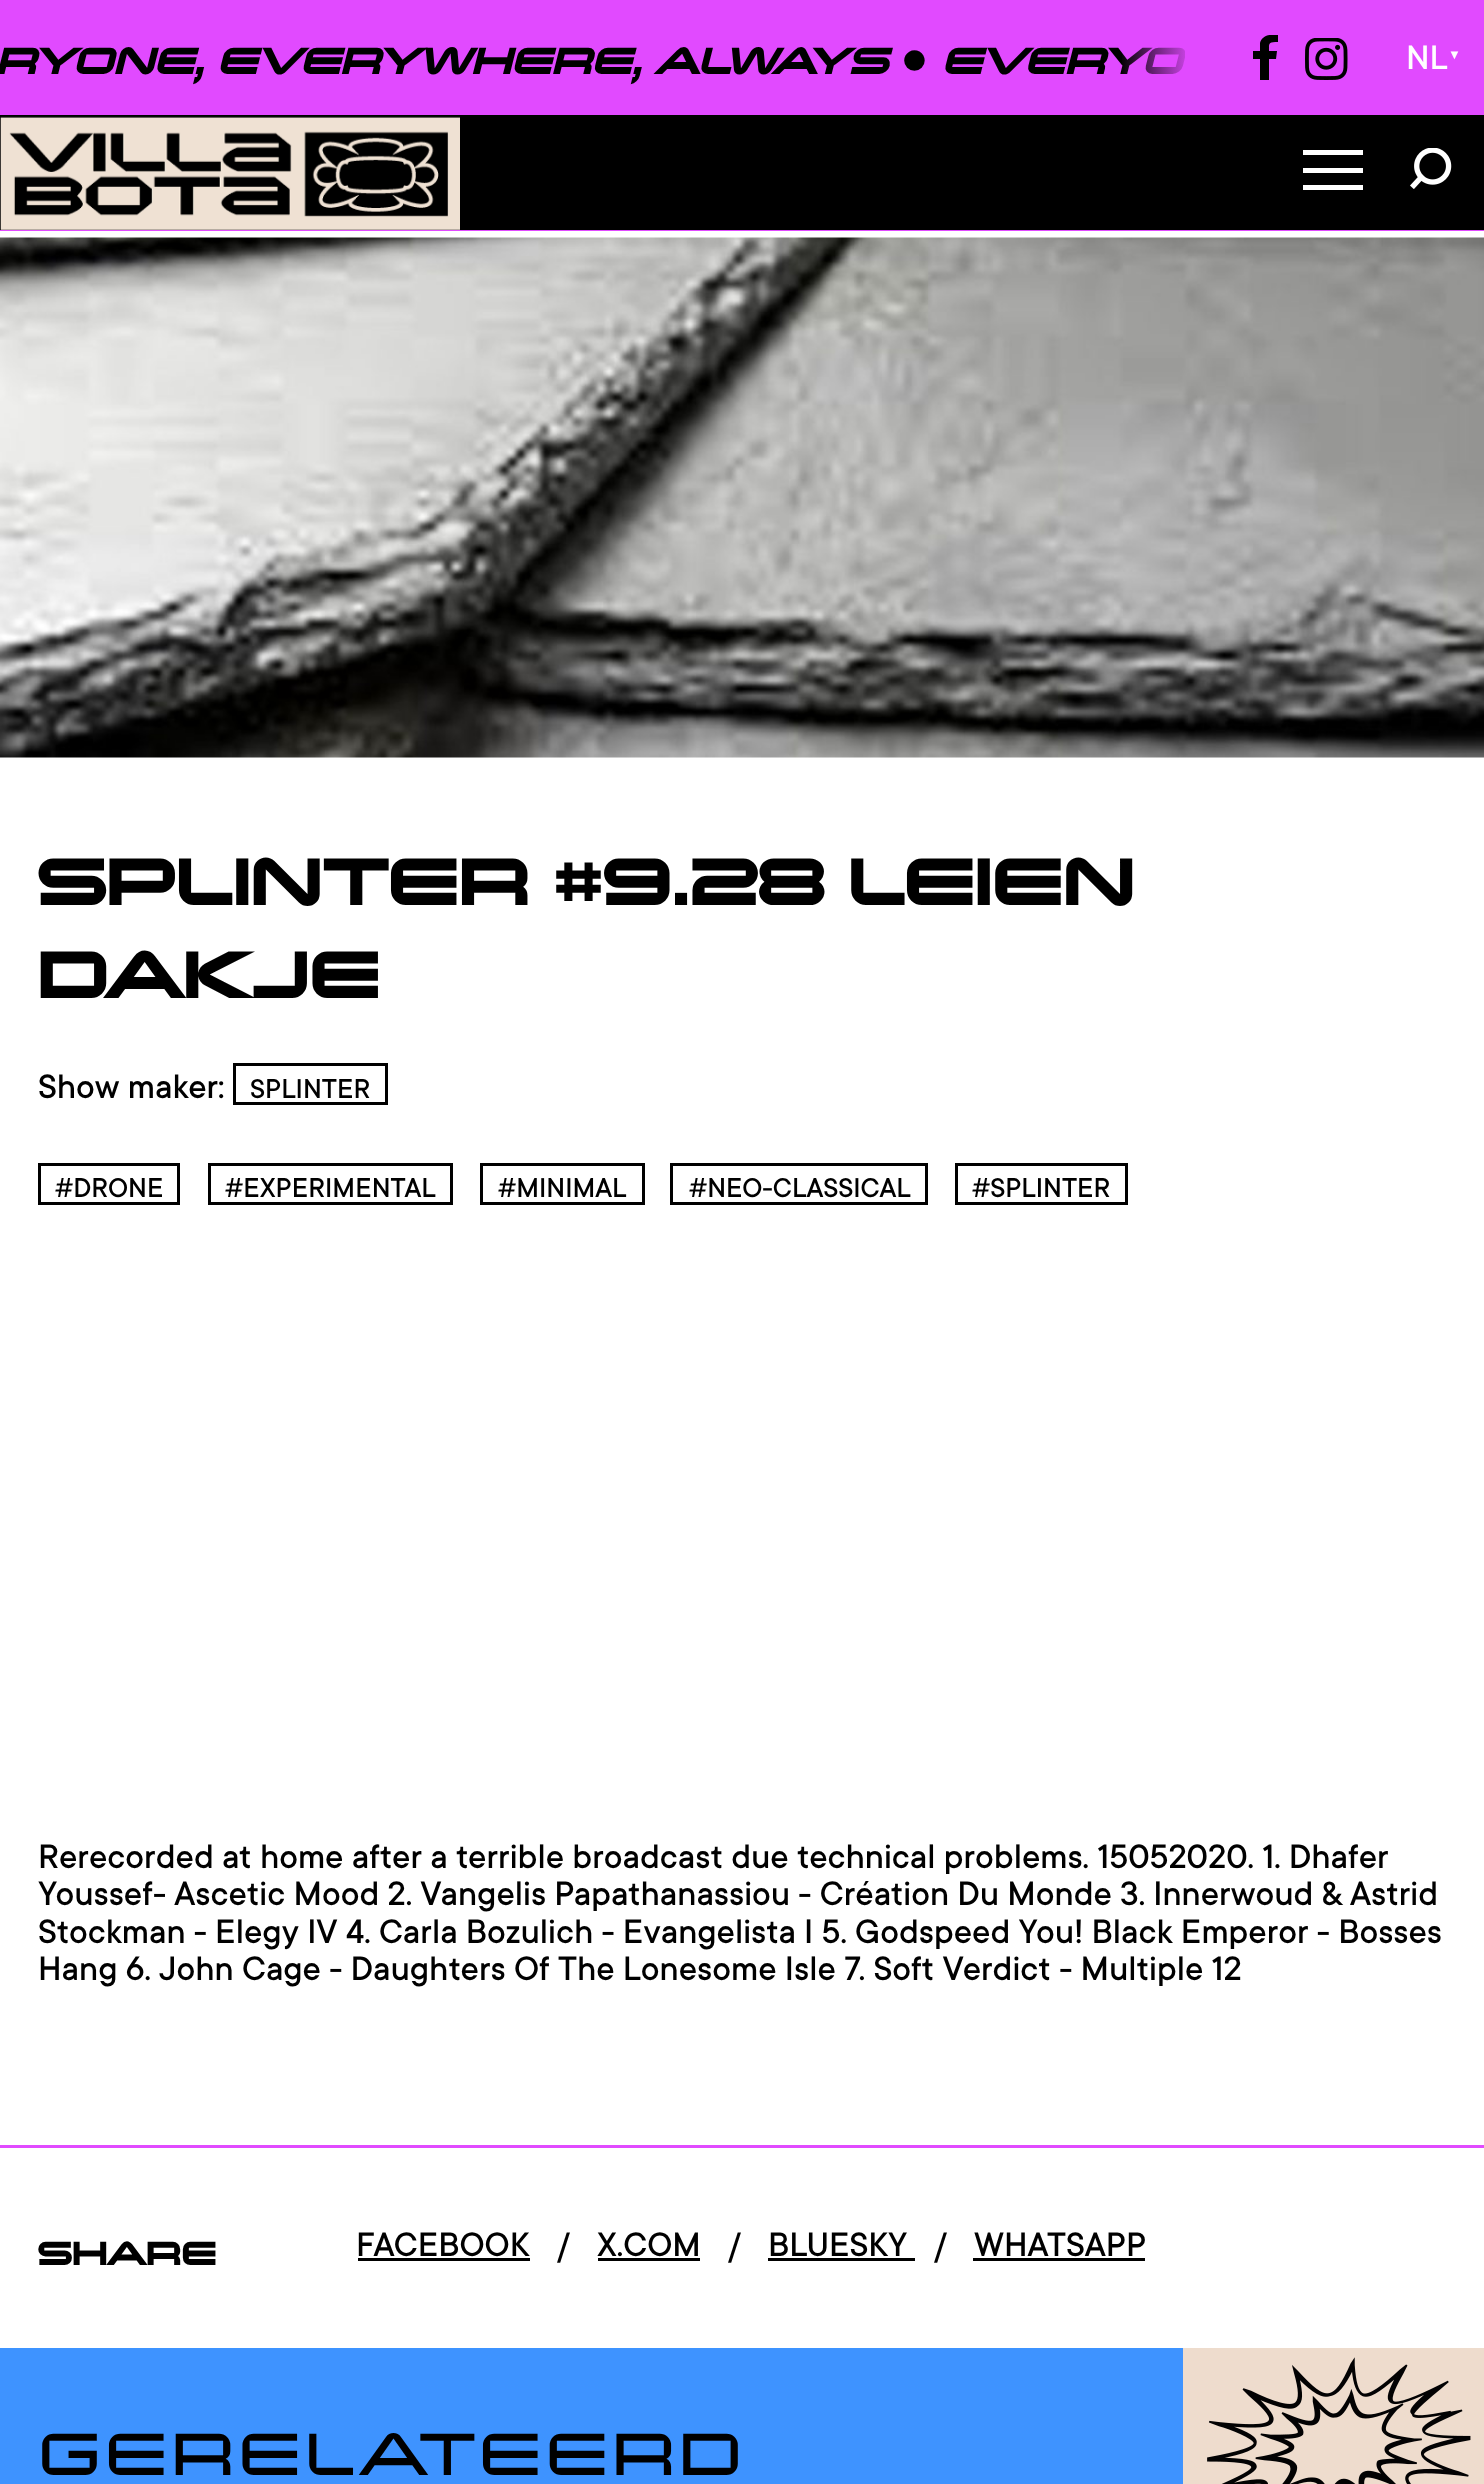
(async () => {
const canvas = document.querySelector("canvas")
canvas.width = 1484
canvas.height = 2484
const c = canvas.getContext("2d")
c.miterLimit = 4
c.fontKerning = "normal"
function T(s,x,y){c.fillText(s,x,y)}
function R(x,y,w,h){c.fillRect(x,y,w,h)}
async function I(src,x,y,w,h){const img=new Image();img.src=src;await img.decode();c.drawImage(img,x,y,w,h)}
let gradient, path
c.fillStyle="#fff"
R(0,0,1484,2484)
c.fillStyle="#e14aff"
R(0,0,1484,115)
c.font="italic bold 47.8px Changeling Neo"
c.fillStyle="#000"
T("RYONE, EVERYWHERE, ALWAYS",-4,74)
c.font="italic bold 47.8px Liberation Sans"
T("●",900,74)
c.save()
c.beginPath()
c.rect(0,10,1185,95)
c.clip()
c.font="italic bold 47.8px Changeling Neo"
T("EVERYO",942,74)
c.restore()
gradient = c.createLinearGradient(1195,58,1120,58)
gradient.addColorStop(0,"#e14aff")
gradient.addColorStop(1,"#e14aff00")
c.fillStyle = gradient
R(1122,47,63,27)
c.save()
c.beginPath()
c.rect(1253,35,25,45)
c.clip()
c.fillStyle="#000"
path = new Path2D("M1269 80v-21h7l1-8h-8c0-8-1-9 9-9v-7c-7-1-16 0-18 8v8h-8v8h8v21z")
c.fill(path,"evenodd")
c.restore()
await I("1.png",1305,38,43,42)
c.font="500 37.5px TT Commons"
c.fillStyle="#fff"
T("NL",1406,69)
c.letterSpacing="13px"
c.font="italic 13px Liberation Sans"
T("▼",1448,59)
c.fillStyle="#000"
R(0,115,1484,115)
await I("2.png",0,116,460,114)
c.fillStyle="#fff"
R(1303,150,60,5)
R(1303,168,60,5)
R(1303,185,60,5)
await I("3.png",1410,148,42,41)
c.fillStyle="#e14aff"
R(0,230,1484,1)
await I("4.png",0,237,1484,521)
c.letterSpacing="0px"
c.font="bold 84.4px Changeling Neo"
c.fillStyle="#000"
T("SPLINTER #9.28 LEIEN",38,905)
T("DAKJE",38,998)
c.font="500 37.5px TT Commons"
T("Show maker:",38,1098)
c.strokeStyle="#000"
c.lineWidth=3
c.strokeRect(234.5,1064.5,152,39)
c.font="500 30px TT Commons"
T("SPLINTER",250,1098)
c.strokeRect(39.5,1164.5,139,39)
T("#DRONE",55,1197)
c.strokeRect(209.5,1164.5,242,39)
T("#EXPERIMENTAL",225,1197)
c.strokeRect(481.5,1164.5,162,39)
T("#MINIMAL",498,1197)
c.strokeRect(671.5,1164.5,255,39)
T("#NEO-CLASSICAL",689,1197)
c.strokeRect(956.5,1164.5,170,39)
T("#SPLINTER",972,1197)
c.font="500 37.5px TT Commons"
T("Rerecorded at home after a terrible broadcast due technical problems. 15052020. 1. Dhafer",38,1868)
T("Youssef- Ascetic Mood 2. Vangelis Papathanassiou - Création Du Monde 3. Innerwoud & Astrid",38,1905)
T("Stockman - Elegy IV 4. Carla Bozulich - Evangelista I 5. Godspeed You! Black Emperor - Bosses",38,1943)
T("Hang 6. John Cage - Daughters Of The Lonesome Isle 7. Soft Verdict - Multiple 12",38,1980)
c.fillStyle="#e14aff"
R(0,2145,1484,3)
c.font="bold 42px Changeling Neo"
c.fillStyle="#000"
T("SHARE",38,2265)
c.font="500 37.5px TT Commons"
T("FACEBOOK",356,2256)
R(358,2258,172,3)
T("/",557,2256)
T("X.COM",597,2256)
R(598,2258,102,3)
T("/",728,2256)
T("BLUESKY",768,2256)
R(768,2258,147,3)
T("/",934,2256)
T("WHATSAPP",974,2256)
R(973,2258,172,3)
c.fillStyle="#3e93ff"
R(0,2348,1183,136)
c.letterSpacing="3.75px"
c.font="75px Changeling Neo"
c.fillStyle="#000"
T("GERELATEERD",38,2475)
await I("5.png",1183,2348,301,136)
})()
